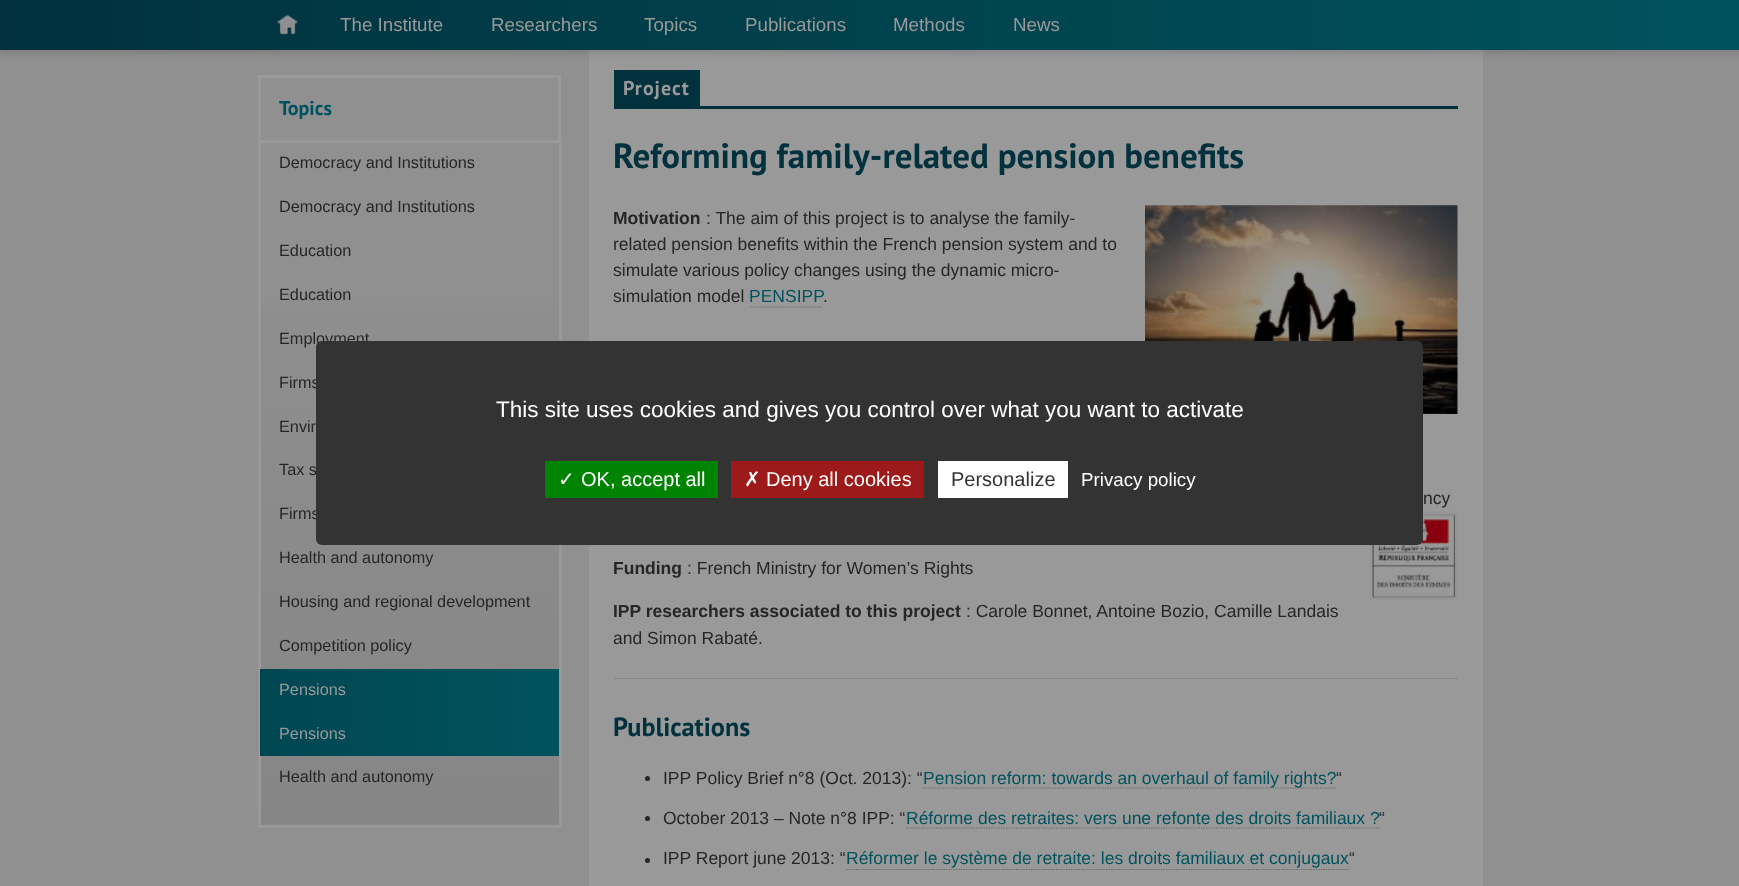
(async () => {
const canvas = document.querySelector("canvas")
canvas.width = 1739
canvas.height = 886
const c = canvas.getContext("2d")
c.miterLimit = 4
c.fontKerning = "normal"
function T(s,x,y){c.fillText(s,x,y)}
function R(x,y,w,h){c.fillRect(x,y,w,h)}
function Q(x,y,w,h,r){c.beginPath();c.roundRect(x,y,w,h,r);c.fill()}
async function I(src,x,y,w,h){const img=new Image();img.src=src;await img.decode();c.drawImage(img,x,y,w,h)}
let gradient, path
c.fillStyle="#919091"
R(0,0,1739,886)
c.fillStyle="#999"
R(589,50,894,836)
c.fillStyle="#0000001a"
c.filter="blur(3px)"
c.beginPath()
c.rect(-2,-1,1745,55)
c.fill()
c.filter="none"
gradient = c.createLinearGradient(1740,25,0,25)
gradient.addColorStop(0,"#00535d")
gradient.addColorStop(1,"#00313d")
c.fillStyle = gradient
R(0,0,1739,50)
await I("1.png",276,14,23,22)
c.font="18.75px Liberation Sans"
c.fillStyle="#999"
T("The Institute",340,31)
T("Researchers",491,31)
T("Topics",644,31)
T("Publications",745,31)
T("Methods",893,31)
T("News",1013,31)
c.strokeStyle="#999"
c.lineWidth=3
c.strokeRect(259.5,76.5,300,65)
c.font="bold 20px PT Sans"
c.fillStyle="#00535d"
T("Topics",279,115)
gradient = c.createLinearGradient(409,143,409,825)
gradient.addColorStop(0,"#919191")
gradient.addColorStop(1,"#868686")
c.fillStyle = gradient
R(261,298,298,527)
c.fillStyle="#999"
R(559,143,3,685)
R(258,825,303,3)
R(258,143,3,685)
c.font="16.25px Liberation Sans"
c.fillStyle="#262626"
T("Democracy and Institutions",279,168)
T("Democracy and Institutions",279,212)
T("Education",279,256)
T("Education",279,300)
T("Employment",279,344)
T("Firms",279,388)
T("Envir",279,432)
T("Tax s",279,475)
T("Firms",279,519)
T("Health and autonomy",279,563)
T("Housing and regional development",279,607)
T("Competition policy",279,651)
gradient = c.createLinearGradient(260,691,559,691)
gradient.addColorStop(0,"#004752")
gradient.addColorStop(1,"#00535d")
c.fillStyle = gradient
R(260,669,299,44)
c.fillStyle="#999"
T("Pensions",279,695)
gradient = c.createLinearGradient(260,734,559,734)
gradient.addColorStop(0,"#004752")
gradient.addColorStop(1,"#00535d")
c.fillStyle = gradient
R(260,713,299,43)
c.fillStyle="#999"
T("Pensions",279,739)
c.fillStyle="#262626"
T("Health and autonomy",279,782)
c.fillStyle="#00313d"
R(614,106,844,3)
R(614,70,86,36)
c.letterSpacing="1px"
c.font="bold 20px PT Sans"
c.fillStyle="#999"
T("Project",623,95)
c.letterSpacing="0px"
c.font="bold 35px PT Sans"
c.fillStyle="#00313d"
T("Reforming family-related pension benefits",613,168)
c.font="bold 17.5px Liberation Sans"
c.fillStyle="#262626"
T("Motivation",613,224)
await I("2.png",1145,205,313,209)
c.font="17.5px Liberation Sans"
T(": The aim of this project is to analyse the family-",706,224)
T("related pension benefits within the French pension system and to",613,250)
T("simulate various policy changes using the dynamic micro-",613,276)
T("simulation model",613,302)
c.fillStyle="#00535d"
T("PENSIPP",749,302)
path = new Path2D("M750 307h72.5")
c.strokeStyle="#666"
c.lineWidth=1.2
c.setLineDash([1.25,1.25])
c.stroke(path)
c.fillStyle="#262626"
T(".",823,302)
T("ncy",1423,504)
await I("3.png",1370,511,88,89)
c.font="bold 17.5px Liberation Sans"
T("Funding",613,574)
c.font="17.5px Liberation Sans"
T(": French Ministry for Women’s Rights",687,574)
c.font="bold 17.5px Liberation Sans"
T("IPP researchers associated to this project",613,617)
c.font="17.5px Liberation Sans"
T(": Carole Bonnet, Antoine Bozio, Camille Landais",966,617)
T("and Simon Rabaté.",613,644)
c.fillStyle="#868686"
R(614,678,844,1)
c.font="bold 26.25px PT Sans"
c.fillStyle="#00313d"
T("Publications",613,736)
c.font="17.5px Liberation Sans"
c.fillStyle="#262626"
T("IPP Policy Brief n°8 (Oct. 2013): “",663,784)
path = new Path2D("M922.5 788h413.5")
c.stroke(path)
c.fillStyle="#00535d"
T("Pension reform: towards an overhaul of family rights?",923,784)
c.fillStyle="#262626"
T("“",1336,784)
c.beginPath()
c.arc(647.5,778.5,2.5,0,7)
c.fill()
T("October 2013 – Note n°8 IPP: “",663,824)
c.fillStyle="#00535d"
T("Réforme des retraites: vers une refonte des droits familiaux ?",906,824)
path = new Path2D("M906 828h474")
c.stroke(path)
c.fillStyle="#262626"
T("“",1379,824)
c.beginPath()
c.arc(647.5,818.5,2.5,0,7)
c.fill()
T("IPP Report june 2013: “",663,864)
c.fillStyle="#00535d"
T("Réformer le système de retraite: les droits familiaux et conjugaux",846,864)
path = new Path2D("M846 869.5h503")
c.stroke(path)
c.fillStyle="#262626"
T("“",1349,864)
c.beginPath()
c.arc(647.5,860.5,2.5,0,7)
c.fill()
c.fillStyle="#333"
Q(316,341,1107,204,6)
c.font="22.5px Liberation Sans"
c.fillStyle="#fff"
T("This site uses cookies and gives you control over what you want to activate",496,417)
c.fillStyle="#008300"
R(545,461,173,37)
c.font="20px DejaVu Sans"
c.fillStyle="#fff"
T("✓",558,486)
c.font="20px Liberation Sans"
T("OK, accept all",581,486)
c.fillStyle="#9c1a1a"
R(731,461,193,37)
c.font="20px DejaVu Sans"
c.fillStyle="#fff"
T("✗",744,486)
c.font="20px Liberation Sans"
T("Deny all cookies",766,486)
R(938,461,130,37)
c.fillStyle="#333"
T("Personalize",951,486)
c.font="18.75px Liberation Sans"
c.fillStyle="#fff"
T("Privacy policy",1081,486)
})()
